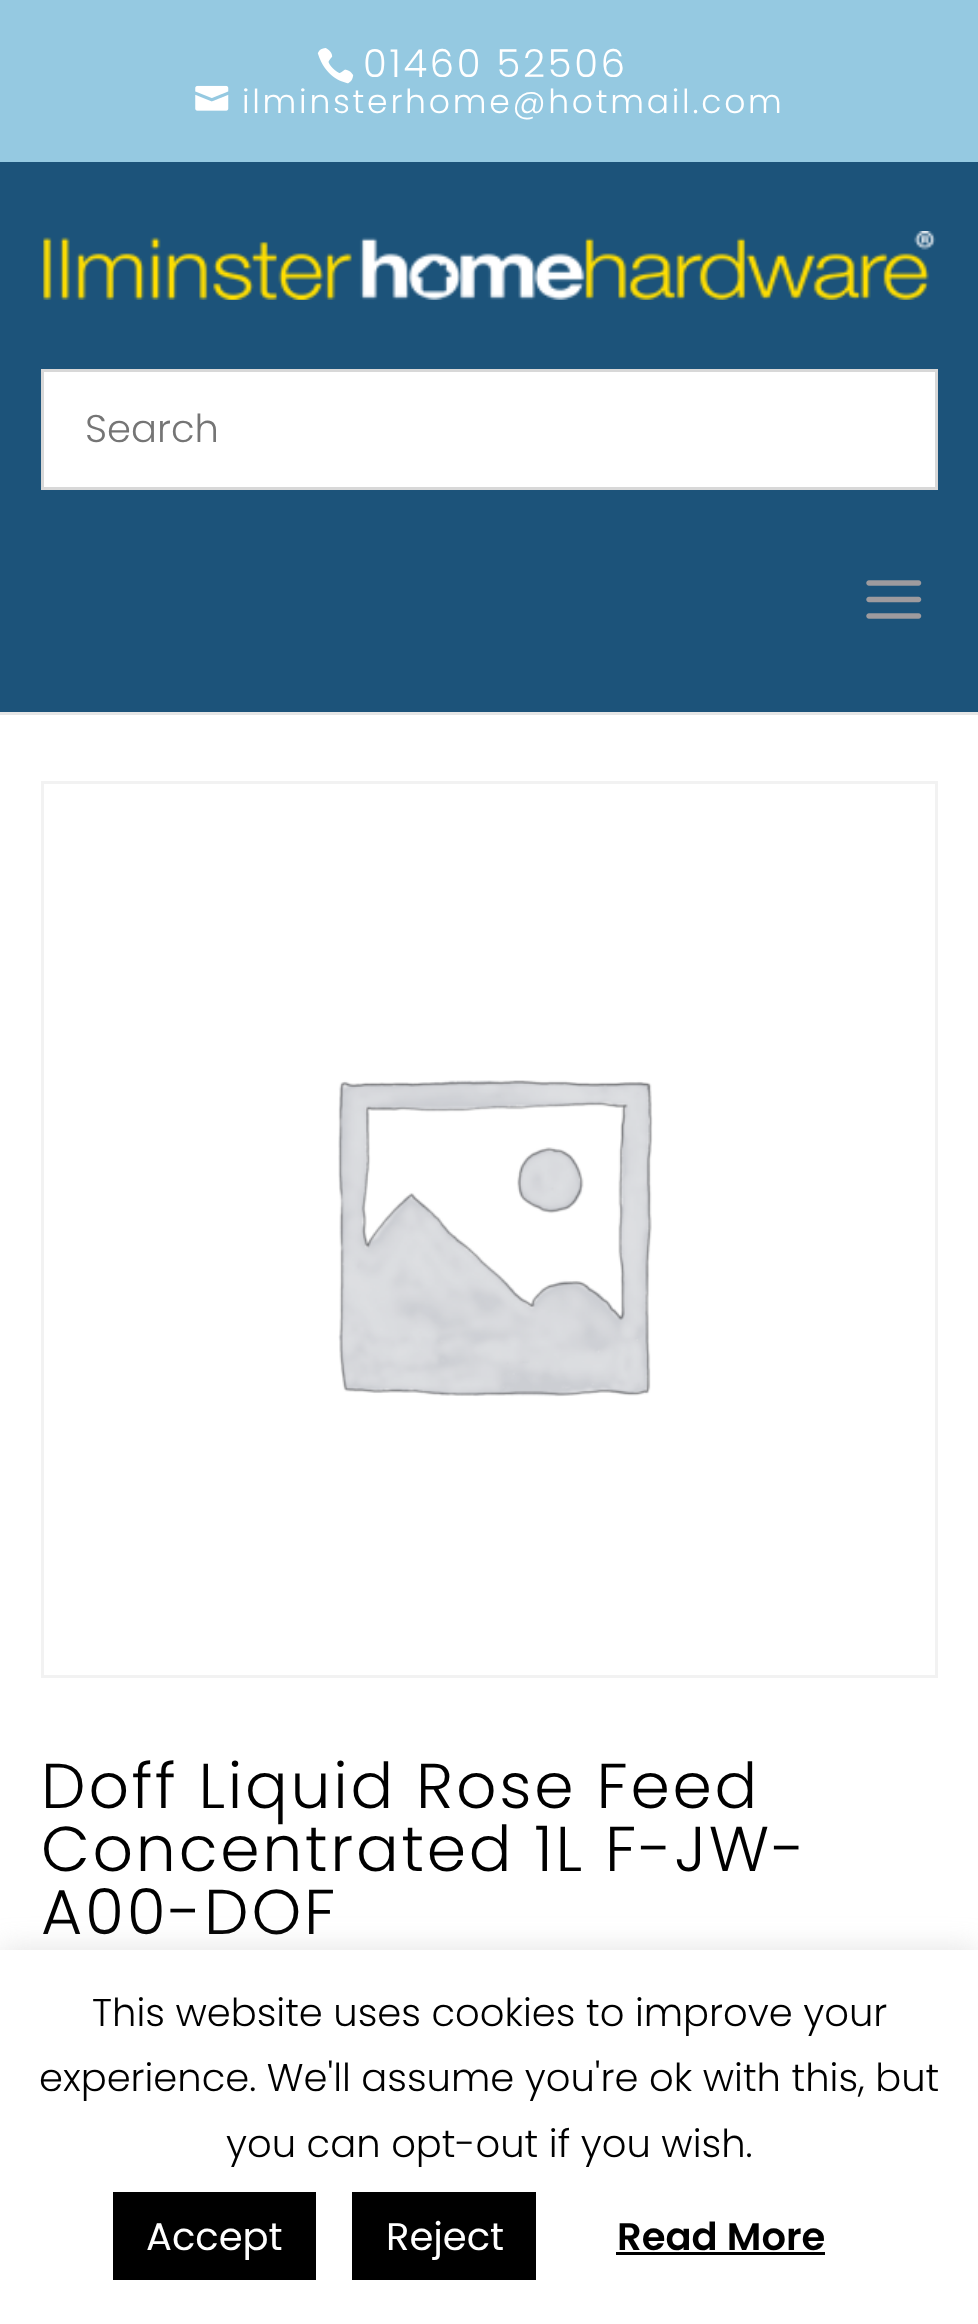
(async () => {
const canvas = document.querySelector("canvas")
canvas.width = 978
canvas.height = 2324
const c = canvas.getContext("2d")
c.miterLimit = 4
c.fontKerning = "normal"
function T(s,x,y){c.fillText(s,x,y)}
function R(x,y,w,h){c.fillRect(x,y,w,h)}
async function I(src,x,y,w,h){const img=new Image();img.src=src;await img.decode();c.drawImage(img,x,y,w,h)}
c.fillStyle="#fff"
R(0,0,978,2324)
c.fillStyle="#95c9e1"
R(0,0,978,162)
await I("1.png",317,48,37,36)
c.letterSpacing="2.75px"
c.font="300 38.5px Poppins"
c.fillStyle="#fff"
T("01460 52506",363,77)
await I("2.png",195,85,34,26)
c.font="300 33px Poppins"
T("ilminsterhome@hotmail.com",242,113)
c.fillStyle="#e6e6e6"
R(0,712,978,3)
c.fillStyle="#1c537a"
R(0,162,978,550)
await I("3.png",43,231,893,69)
c.fillStyle="#fff"
c.beginPath()
c.rect(42.5,370.5,894,118)
c.fill()
c.strokeStyle="#d8d8d8"
c.lineWidth=3
c.stroke()
c.letterSpacing="0px"
c.font="300 38.5px Poppins"
c.fillStyle="#757575"
T("Search",85,442)
await I("4.png",866,580,56,39)
c.strokeStyle="#f2f2f2"
c.strokeRect(42.5,782.5,894,894)
await I("5.png",338,1080,315,317)
c.letterSpacing="2.75px"
c.font="300 63.25px Poppins"
c.fillStyle="#000"
T("Doff Liquid Rose Feed",41,1808)
T("Concentrated 1L F-JW-",41,1871)
T("A00-DOF",41,1934)
c.fillStyle="#acabab4d"
c.filter="blur(14px)"
c.beginPath()
c.rect(0,1947,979,377)
c.fill()
c.filter="none"
c.fillStyle="#fff"
R(0,1950,978,374)
c.letterSpacing="0px"
c.font="300 38.5px Poppins"
c.fillStyle="#000"
T("This website uses cookies to improve your",92,2026)
T("experience. We'll assume you're ok with this, but",39,2091)
T("you can opt-out if you wish.",226,2157)
R(113,2192,203,88)
c.font="38.5px Poppins"
c.fillStyle="#fff"
T("Accept",146,2250)
c.fillStyle="#000"
R(352,2192,184,88)
c.fillStyle="#fff"
T("Reject",386,2250)
c.font="600 38.5px Poppins"
c.fillStyle="#000"
T("Read More",617,2250)
R(616,2252,209,3)
})()
